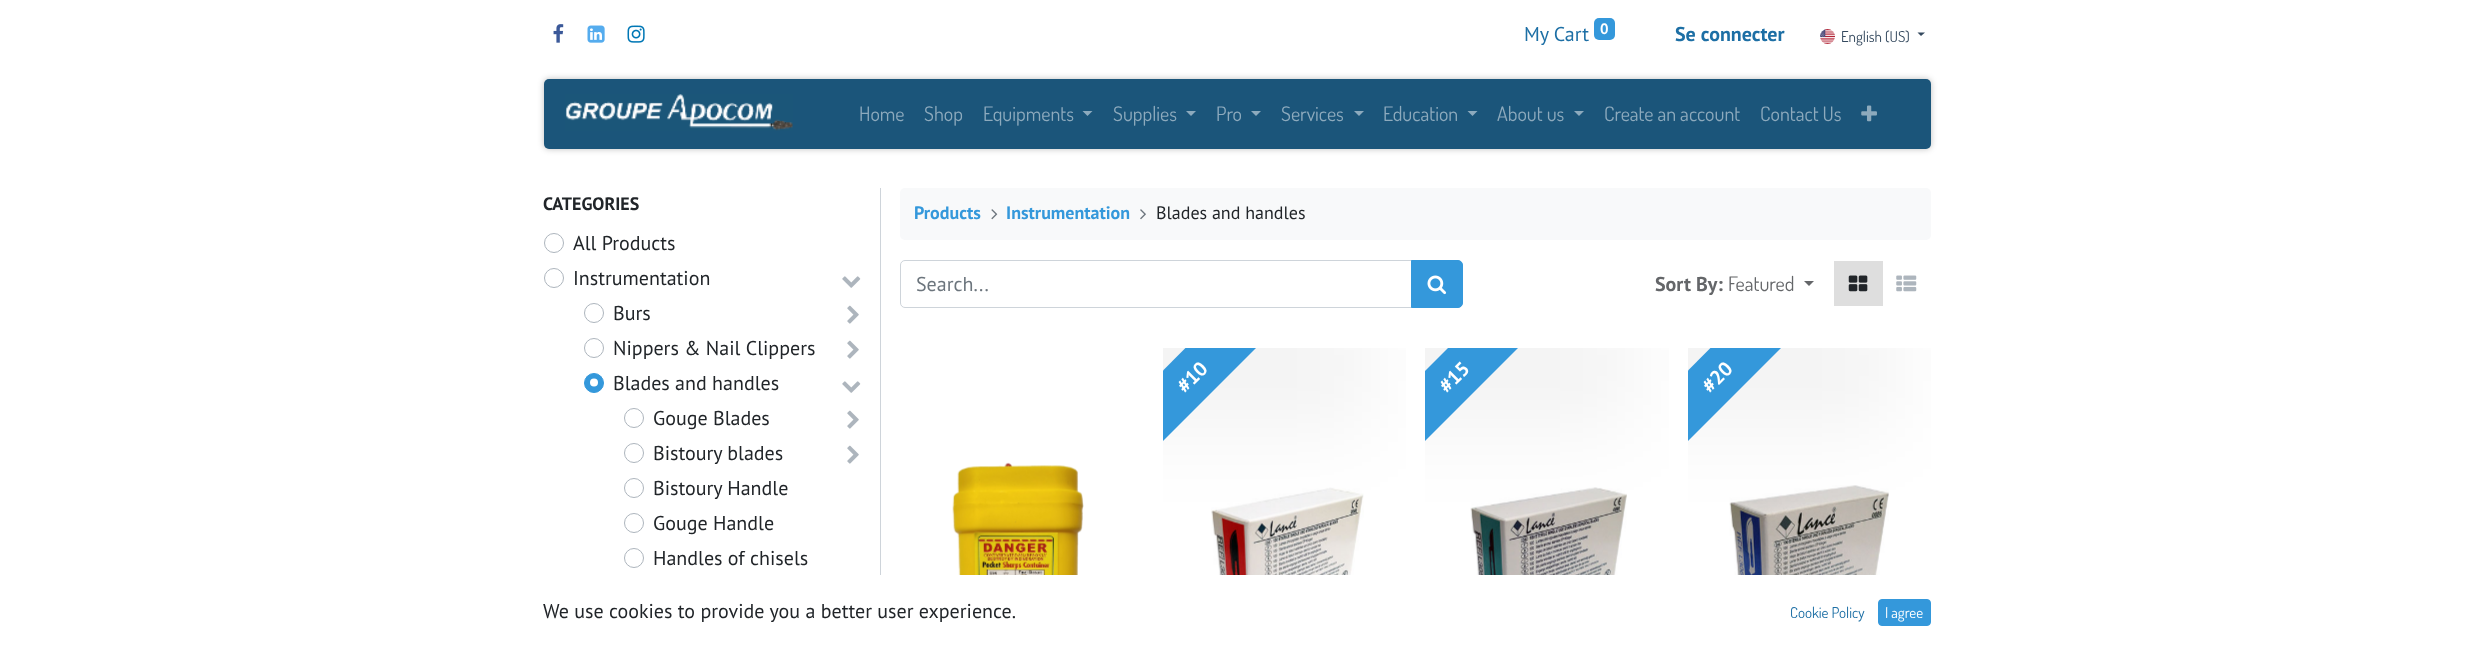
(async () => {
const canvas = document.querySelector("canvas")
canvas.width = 2473
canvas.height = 645
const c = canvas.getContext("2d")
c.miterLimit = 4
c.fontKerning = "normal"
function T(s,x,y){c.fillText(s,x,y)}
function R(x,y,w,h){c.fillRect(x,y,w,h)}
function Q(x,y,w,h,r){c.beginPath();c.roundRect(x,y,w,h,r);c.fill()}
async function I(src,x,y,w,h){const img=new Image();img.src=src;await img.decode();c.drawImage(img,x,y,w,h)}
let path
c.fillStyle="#fff"
R(0,0,2473,645)
await I("1.png",553,24,11,19)
await I("2.png",587,25,18,18)
await I("3.png",627,25,18,18)
c.font="20px PT Sans"
c.fillStyle="#1d6fa5"
T("My Cart",1524,41)
c.fillStyle="#3498db"
Q(1594,18,21,22,5)
c.font="bold 15px PT Sans"
c.fillStyle="#fff"
T("0",1600,34)
c.font="bold 20px PT Sans"
c.fillStyle="#1d6fa5"
T("Se connecter",1675,41)
await I("4.png",1820,29,15,15)
c.font="15px Dosis"
c.fillStyle="#34495e"
T("English (US)",1841,42)
path = new Path2D("M1917.5 32.5h7.5l-4 3.5z")
c.fill(path)
c.fillStyle="#00000040"
c.filter="blur(3px)"
c.beginPath()
c.roundRect(544,79,1387,70,5)
c.fill()
c.filter="none"
c.fillStyle="#1b557a"
Q(544,79,1387,70,5)
await I("5.png",565,94,228,37)
c.font="20px Dosis"
c.fillStyle="#8daabd"
T("Home",859,121)
T("Shop",924,121)
T("Equipments",983,121)
path = new Path2D("M1082.5 111h10l-5 5z")
c.fill(path)
T("Supplies",1113,121)
path = new Path2D("M1186 111h10l-5 5z")
c.fill(path)
T("Pro",1216,121)
path = new Path2D("M1251 111h10l-5 5z")
c.fill(path)
T("Services",1281,121)
path = new Path2D("M1354 111h10l-5 5z")
c.fill(path)
T("Education",1383,121)
path = new Path2D("M1467.5 111h10l-5 5z")
c.fill(path)
T("About us",1497,121)
path = new Path2D("M1574 111h10l-5 5z")
c.fill(path)
T("Create an account",1604,121)
T("Contact Us",1760,121)
await I("6.png",1861,105,16,17)
c.fillStyle="#ced4da"
R(880,188,1,387)
c.font="bold 18px PT Sans"
c.fillStyle="#212529"
T("CATEGORIES",543,210)
c.beginPath()
c.arc(554,243,9.5,0,7)
c.strokeStyle="#adb5bd"
c.stroke()
c.font="20px PT Sans"
T("All Products",573,250)
c.beginPath()
c.arc(554,278,9.5,0,7)
c.stroke()
T("Instrumentation",573,285)
await I("7.png",842,276,19,12)
c.beginPath()
c.arc(594,313,9.5,0,7)
c.stroke()
T("Burs",613,320)
await I("8.png",847,305,12,19)
c.beginPath()
c.arc(594,348,9.5,0,7)
c.stroke()
T("Nippers & Nail Clippers",613,355)
await I("8.png",847,340,12,19)
c.fillStyle="#3498db"
c.beginPath()
c.arc(594,383,9.5,0,7)
c.fill()
c.strokeStyle="#3498db"
c.stroke()
c.fillStyle="#212529"
T("Blades and handles",613,390)
c.fillStyle="#fff"
c.beginPath()
c.arc(594,382.5,4,0,7)
c.fill()
await I("7.png",842,381,19,12)
c.beginPath()
c.arc(634,418,9.5,0,7)
c.strokeStyle="#adb5bd"
c.stroke()
c.fillStyle="#212529"
T("Gouge Blades",653,425)
await I("8.png",847,410,12,19)
c.beginPath()
c.arc(634,453,9.5,0,7)
c.stroke()
T("Bistoury blades",653,460)
await I("8.png",847,445,12,19)
c.beginPath()
c.arc(634,488,9.5,0,7)
c.stroke()
T("Bistoury Handle",653,495)
c.beginPath()
c.arc(634,523,9.5,0,7)
c.stroke()
T("Gouge Handle",653,530)
c.beginPath()
c.arc(634,558,9.5,0,7)
c.stroke()
T("Handles of chisels",653,565)
c.fillStyle="#f8f9fa"
Q(900,188,1031,52,5)
c.font="bold 18px PT Sans"
c.fillStyle="#3498db"
T("Products",914,219)
await I("9.png",991,209,7,11)
T("Instrumentation",1006,219)
await I("10.png",1140,209,6,11)
c.font="18px PT Sans"
c.fillStyle="#212529"
T("Blades and handles",1156,219)
c.beginPath()
c.roundRect(900.5,260.5,512,47,[4.5,0,0,4.5])
c.strokeStyle="#ced4da"
c.stroke()
c.font="20px PT Sans"
c.fillStyle="#6c757d"
T("Search...",916,291)
await I("14.png",1211,487,153,88)
await I("17.png",952,462,132,113)
c.save()
c.beginPath()
c.rect(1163,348,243,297)
c.clip()
c.fillStyle="#0000000d"
c.filter="blur(44px)"
c.beginPath()
c.rect(1013,303,358,125)
c.fill()
c.filter="none"
c.restore()
c.save()
c.beginPath()
c.rect(1163,348,243,297)
c.clip()
c.fillStyle="#3498db"
path = new Path2D("M1074 460l200-201l36 35l-201 201z")
c.fill(path)
c.restore()
await I("15.png",1470,487,157,88)
c.save()
c.beginPath()
c.rect(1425,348,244,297)
c.clip()
c.fillStyle="#0000000d"
c.filter="blur(44px)"
c.beginPath()
c.rect(1275,303,359,125)
c.fill()
c.filter="none"
c.restore()
c.fillStyle="#646669"
path = new Path2D("M1804 281h10l-5 5z")
c.fill(path)
await I("13.png",1896,275,21,17)
c.save()
c.beginPath()
c.rect(1425,348,244,297)
c.clip()
c.fillStyle="#3498db"
path = new Path2D("M1336 460l201-201l35 35l-201 201z")
c.fill(path)
c.restore()
await I("16.png",1729,485,160,90)
c.save()
c.beginPath()
c.rect(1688,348,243,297)
c.clip()
c.fillStyle="#0000000d"
c.filter="blur(44px)"
c.beginPath()
c.rect(1538,303,358,125)
c.fill()
c.filter="none"
c.restore()
c.fillStyle="#3498db"
c.beginPath()
c.roundRect(1411.5,260.5,51,47,[0,4.5,4.5,0])
c.fill()
c.strokeStyle="#3498db"
c.stroke()
await I("11.png",1427,275,20,20)
c.font="bold 20px PT Sans"
c.fillStyle="#646669"
T("Sort By:",1655,291)
c.font="20px Dosis"
T("Featured",1728,291)
c.fillStyle="#dedede"
R(1834,261,49,45)
await I("12.png",1848,275,20,17)
c.font="bold 20px PT Sans"
c.fillStyle="#fff"
c.save()
c.translate(1185,394)
c.rotate(-45 * Math.PI / 180)
c.fillText("#10",0,0)
c.restore()
c.save()
c.translate(1447,394)
c.rotate(-45 * Math.PI / 180)
c.fillText("#15",0,0)
c.restore()
c.save()
c.beginPath()
c.rect(1688,348,243,297)
c.clip()
c.fillStyle="#3498db"
path = new Path2D("M1599 460l200-201l36 35l-201 201z")
c.fill(path)
c.restore()
c.save()
c.translate(1710,394)
c.rotate(-45 * Math.PI / 180)
c.fillText("#20",0,0)
c.restore()
c.font="20px PT Sans"
c.fillStyle="#212529"
T("We use cookies to provide you a better user experience.",543,618)
c.font="15px Dosis"
c.fillStyle="#1d6fa5"
T("Cookie Policy",1790,618)
c.fillStyle="#3498db"
c.beginPath()
c.roundRect(1878.5,599.5,52,26,3.5)
c.fill()
c.stroke()
c.fillStyle="#fff"
T("I agree",1885,618)
})()
